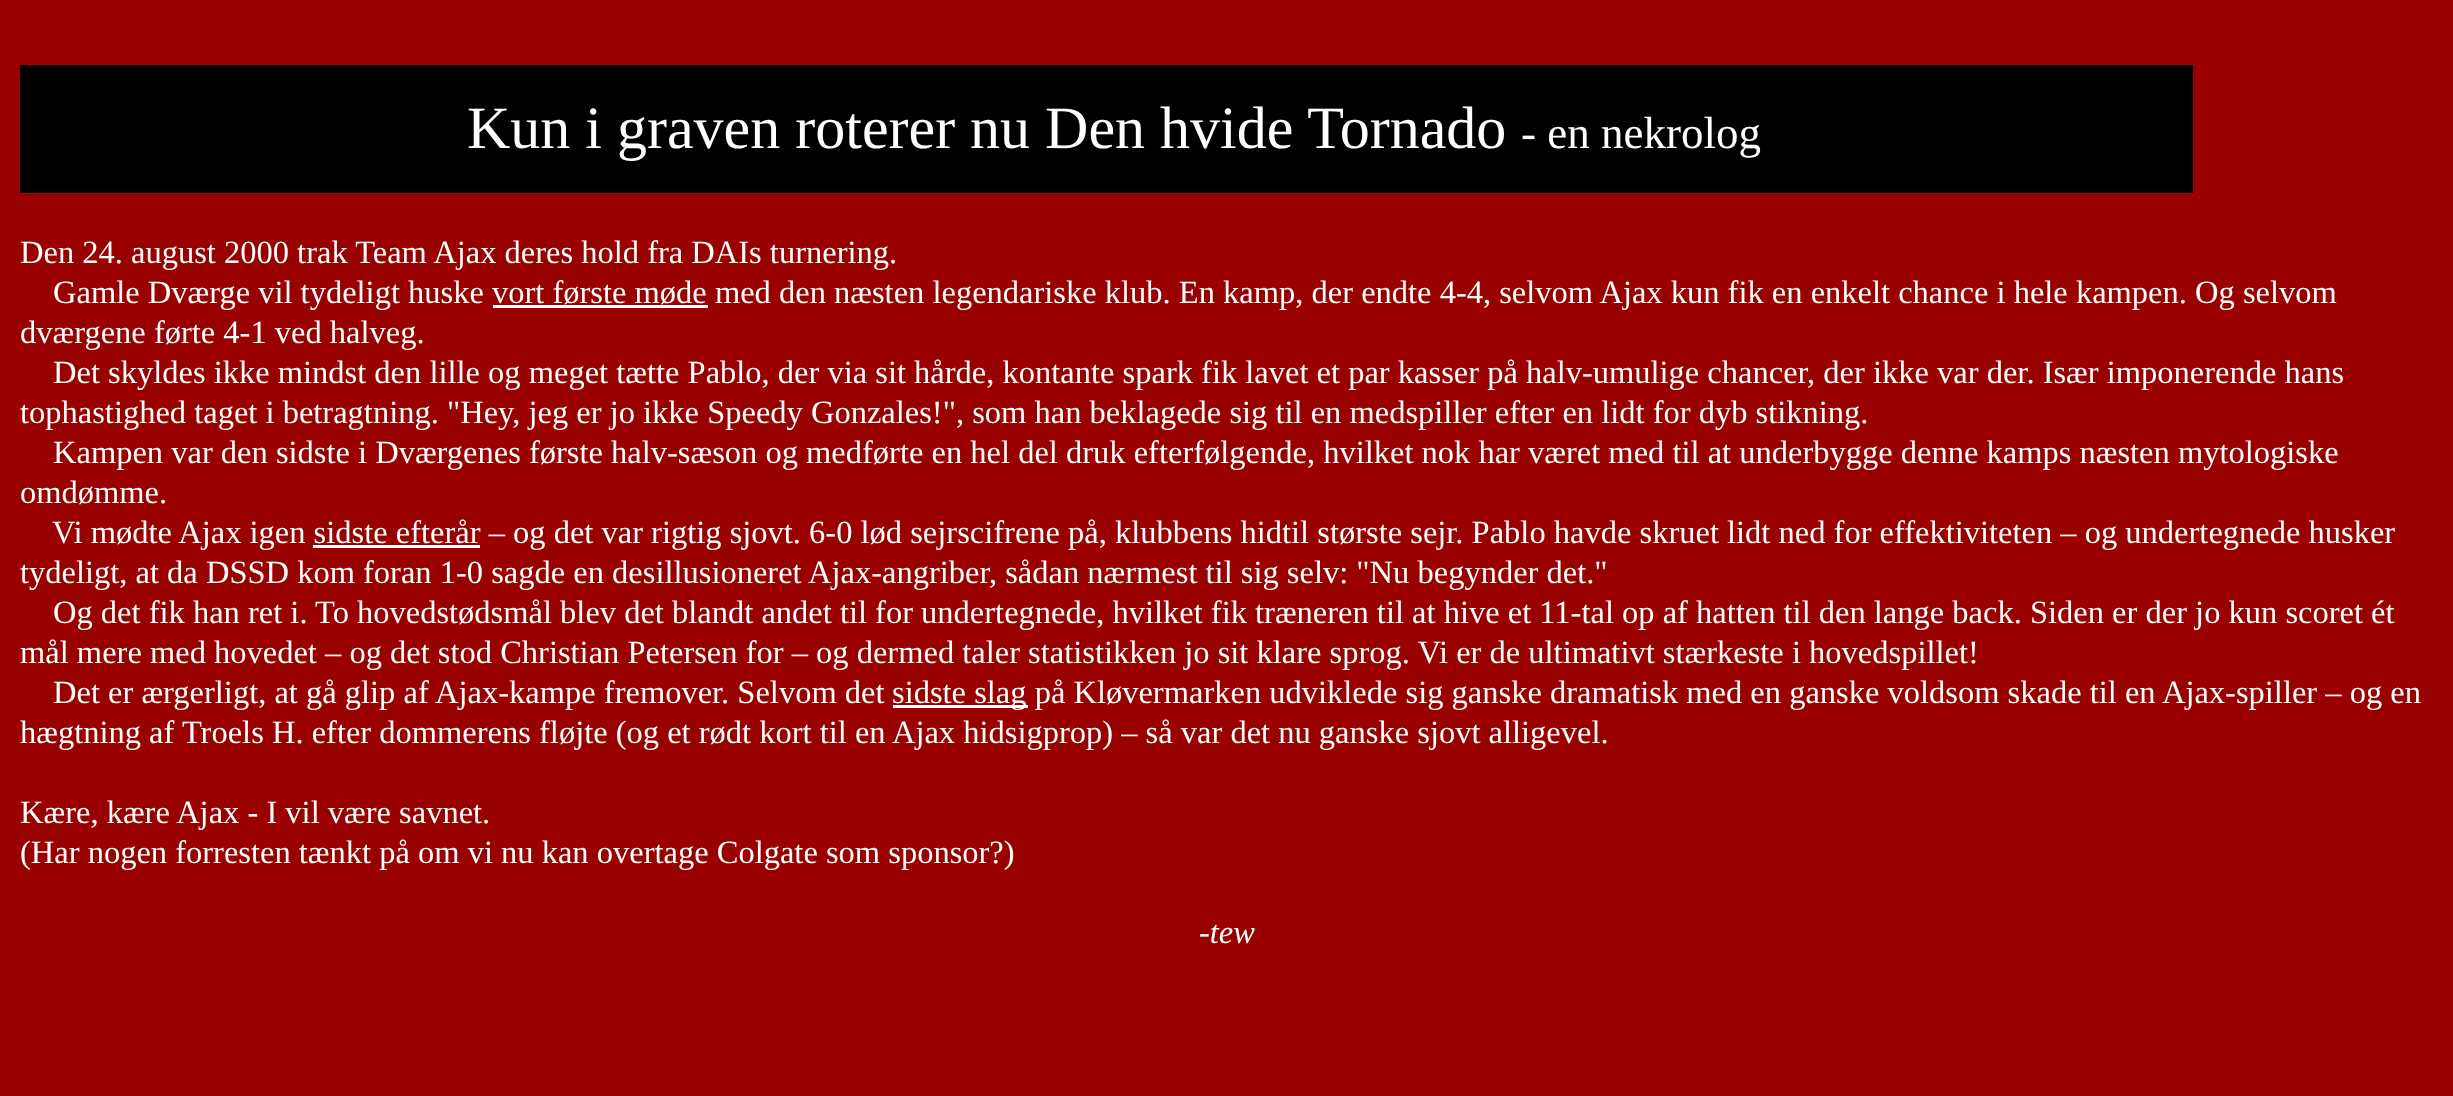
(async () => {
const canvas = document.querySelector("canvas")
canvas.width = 2453
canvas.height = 1096
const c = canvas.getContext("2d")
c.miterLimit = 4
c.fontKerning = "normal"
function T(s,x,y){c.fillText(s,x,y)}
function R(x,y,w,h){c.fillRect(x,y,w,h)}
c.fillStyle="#900"
R(0,0,2453,1096)
c.fillStyle="#000"
R(20,65,2173,128)
c.font="60px Liberation Serif"
c.fillStyle="#fff"
T("Kun i graven roterer nu Den hvide Tornado",467,148)
c.font="45px Liberation Serif"
T("- en nekrolog",1521,148)
c.font="32.5px Liberation Serif"
T("Den 24. august 2000 trak Team Ajax deres hold fra DAIs turnering.",20,263)
T("Gamle Dværge vil tydeligt huske vort første møde med den næsten legendariske klub. En kamp, der endte 4-4, selvom Ajax kun fik en enkelt chance i hele kampen. Og selvom",53,303)
R(493,305,215,3)
T("dværgene førte 4-1 ved halveg.",20,343)
T("Det skyldes ikke mindst den lille og meget tætte Pablo, der via sit hårde, kontante spark fik lavet et par kasser på halv-umulige chancer, der ikke var der. Især imponerende hans",53,383)
T("tophastighed taget i betragtning. \"Hey, jeg er jo ikke Speedy Gonzales!\", som han beklagede sig til en medspiller efter en lidt for dyb stikning.",20,423)
T("Kampen var den sidste i Dværgenes første halv-sæson og medførte en hel del druk efterfølgende, hvilket nok har været med til at underbygge denne kamps næsten mytologiske",53,463)
T("omdømme.",20,503)
T("Vi mødte Ajax igen sidste efterår – og det var rigtig sjovt. 6-0 lød sejrscifrene på, klubbens hidtil største sejr. Pablo havde skruet lidt ned for effektiviteten – og undertegnede husker",52,543)
R(313,545,167,3)
T("tydeligt, at da DSSD kom foran 1-0 sagde en desillusioneret Ajax-angriber, sådan nærmest til sig selv: \"Nu begynder det.\"",20,583)
T("Og det fik han ret i. To hovedstødsmål blev det blandt andet til for undertegnede, hvilket fik træneren til at hive et 11-tal op af hatten til den lange back. Siden er der jo kun scoret ét",53,623)
T("mål mere med hovedet – og det stod Christian Petersen for – og dermed taler statistikken jo sit klare sprog. Vi er de ultimativt stærkeste i hovedspillet!",20,663)
T("Det er ærgerligt, at gå glip af Ajax-kampe fremover. Selvom det",53,703)
R(893,705,135,3)
T("sidste slag på Kløvermarken udviklede sig ganske dramatisk med en ganske voldsom skade til en Ajax-spiller – og en",892,703)
T("hægtning af Troels H. efter dommerens fløjte (og et rødt kort til en Ajax hidsigprop) – så var det nu ganske sjovt alligevel.",20,743)
T("Kære, kære Ajax - I vil være savnet.",20,823)
T("(Har nogen forresten tænkt på om vi nu kan overtage Colgate som sponsor?)",20,863)
c.font="italic 32.5px Liberation Serif"
T("-tew",1199,943)
})()
